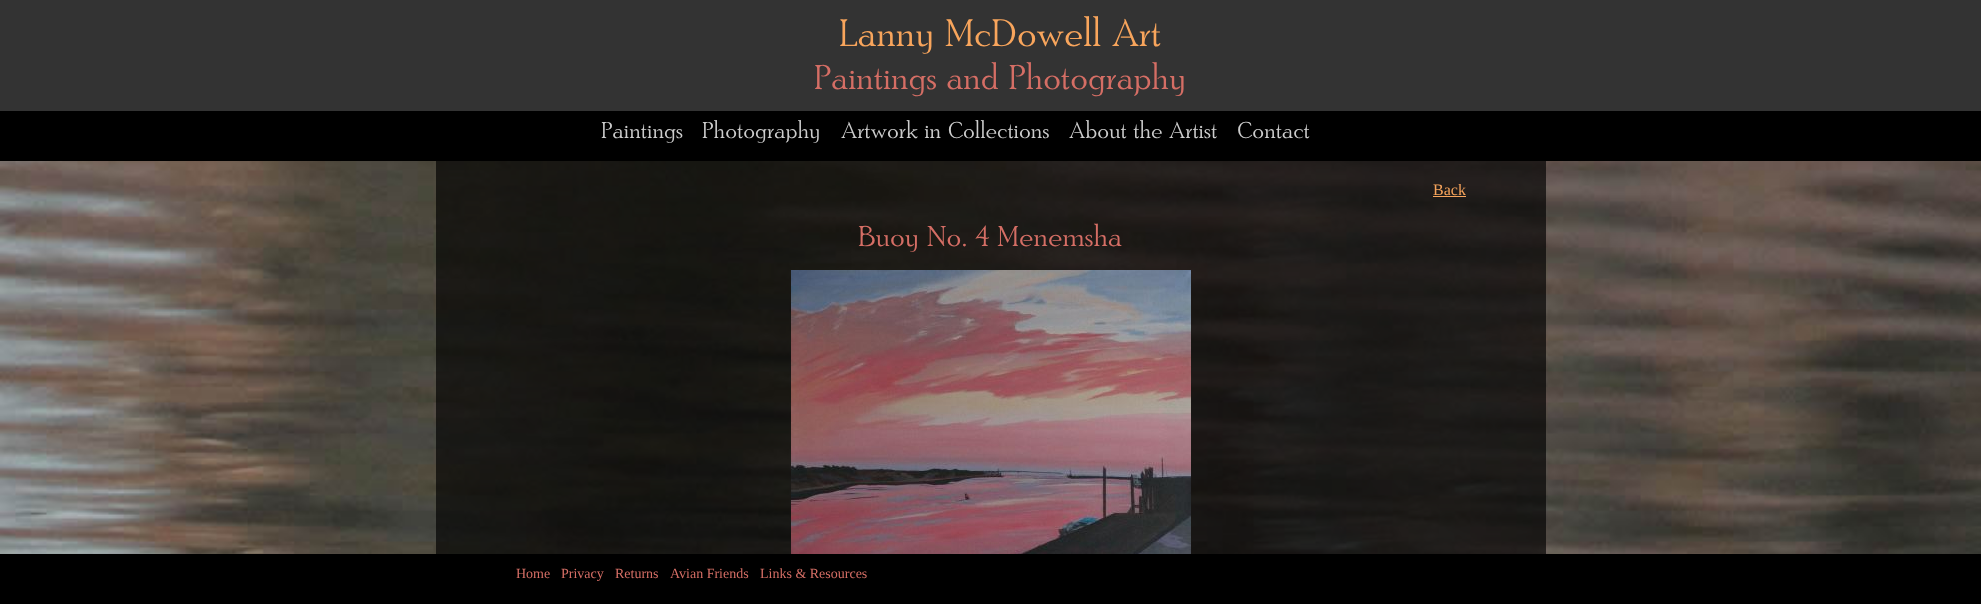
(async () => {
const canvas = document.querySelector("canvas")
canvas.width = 1981
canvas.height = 604
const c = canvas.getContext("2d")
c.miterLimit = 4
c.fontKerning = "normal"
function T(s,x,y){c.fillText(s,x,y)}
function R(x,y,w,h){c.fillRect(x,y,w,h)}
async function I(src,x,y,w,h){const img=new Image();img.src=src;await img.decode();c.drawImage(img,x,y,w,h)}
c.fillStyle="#fff"
R(0,0,1981,604)
c.fillStyle="#333"
R(0,0,1981,111)
c.font="300 40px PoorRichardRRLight"
c.fillStyle="#f8a55c"
T("Lanny McDowell Art",839,46)
c.font="300 36px PoorRichardRRLight"
c.fillStyle="#d56e65"
T("Paintings and Photography",814,89)
c.fillStyle="#000"
R(0,111,1981,50)
c.font="300 24px PoorRichardRRLight"
c.fillStyle="#ccc"
T("Paintings",601,138)
T("Photography",702,138)
T("Artwork in Collections",841,138)
T("About the Artist",1069,138)
T("Contact",1237,138)
await I("2.png",0,161,1981,393)
c.fillStyle="#000000a8"
R(436,161,1110,393)
c.font="16px Liberation Serif"
c.fillStyle="#f8a55c"
T("Back",1433,195)
R(1433,196,33,1)
c.font="300 30px PoorRichardRRLight"
c.fillStyle="#d56e65"
T("Buoy No. 4 Menemsha",858,246)
await I("1.png",791,270,400,284)
c.fillStyle="#000"
R(0,554,1981,50)
c.font="14px Liberation Serif"
c.fillStyle="#d56e65"
T("Home",516,578)
T("Privacy",561,578)
T("Returns",615,578)
T("Avian Friends",670,578)
T("Links & Resources",760,578)
})()
